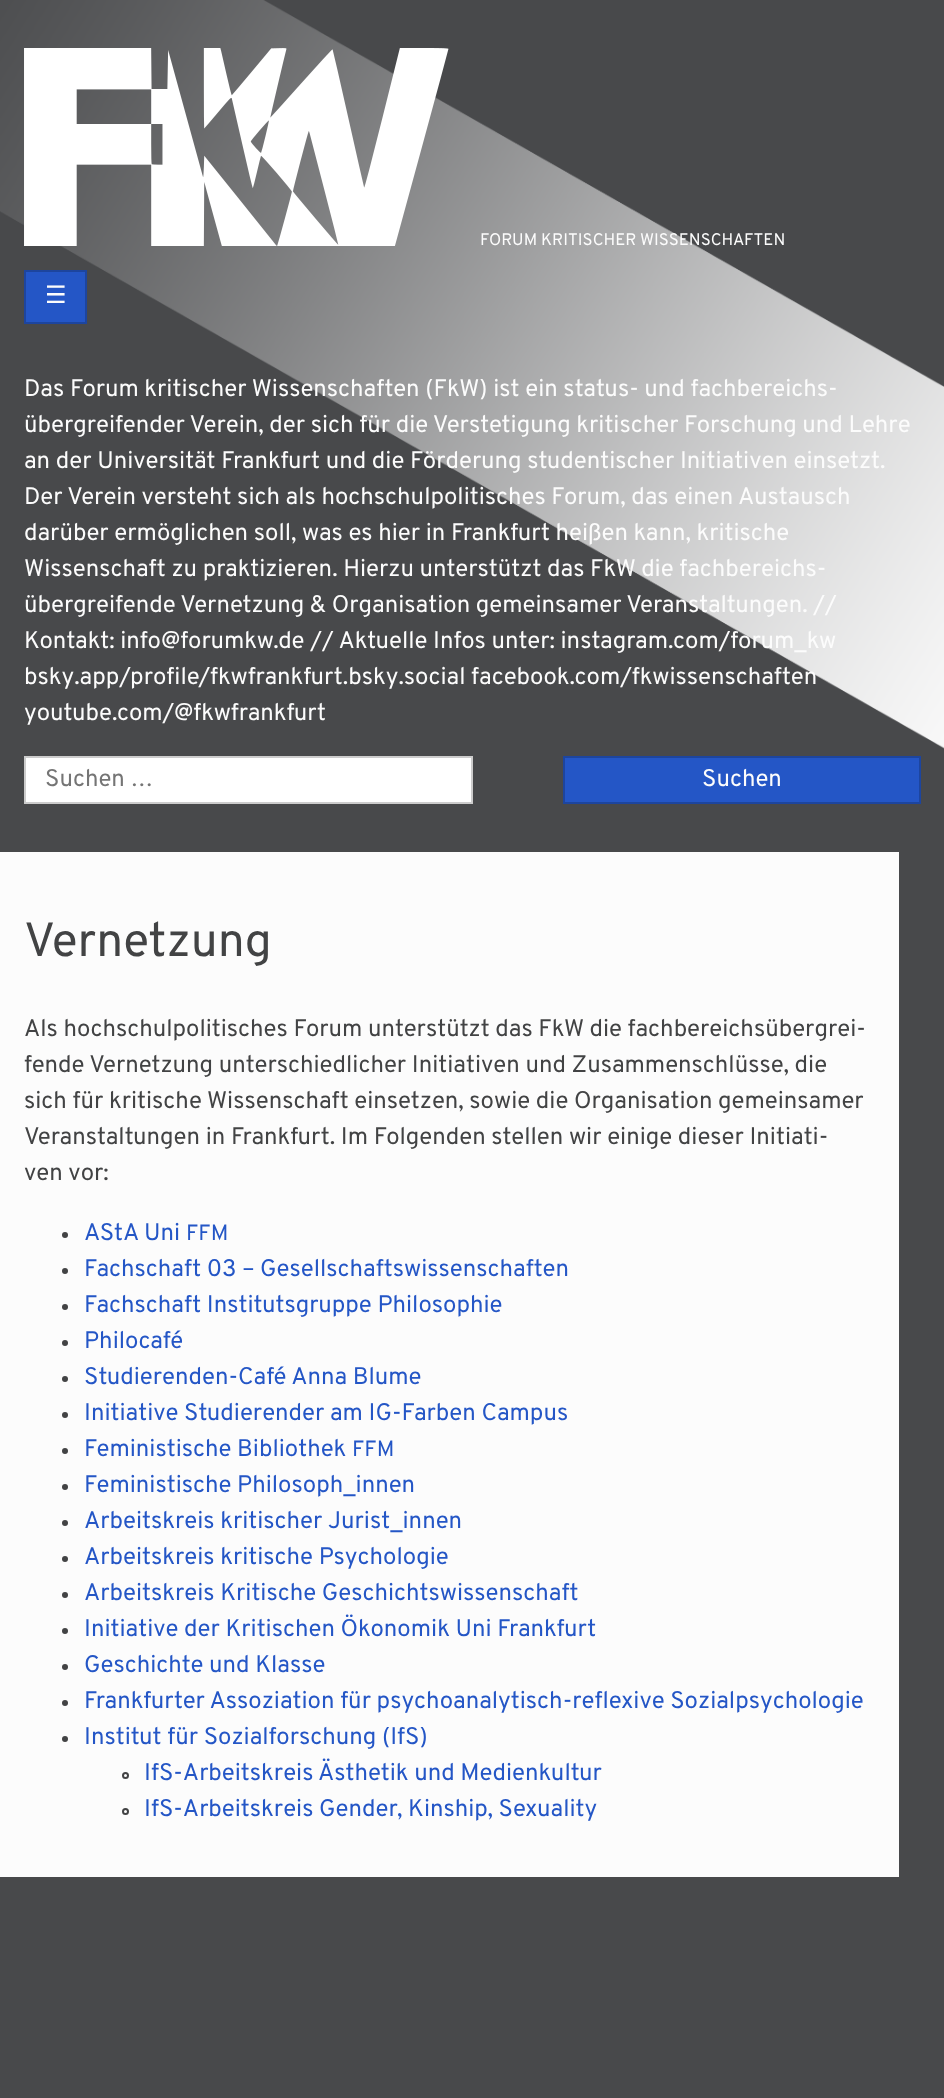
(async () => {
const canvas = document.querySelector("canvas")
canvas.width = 944
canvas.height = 2098
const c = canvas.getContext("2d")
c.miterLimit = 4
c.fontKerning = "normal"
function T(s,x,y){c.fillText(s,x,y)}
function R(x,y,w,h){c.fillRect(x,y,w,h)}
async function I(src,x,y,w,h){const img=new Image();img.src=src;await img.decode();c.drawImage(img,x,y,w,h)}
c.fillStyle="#48494b"
R(0,0,944,2098)
await I("1.png",0,0,944,749)
await I("2.png",24,48,425,198)
c.font="16.75px Overpass"
c.fillStyle="#fcfcfc"
T("FORUM KRITISCHER WISSENSCHAFTEN",480,245)
c.fillStyle="#2456c6"
c.beginPath()
c.rect(25,271,61,52)
c.fill()
c.strokeStyle="#1d459e"
c.lineWidth=2
c.stroke()
c.font="24px DejaVu Sans"
c.fillStyle="#fcfcfc"
T("☰",45,303)
c.font="24px Overpass"
T("Das Forum kritischer Wissenschaften (FkW) ist ein status- und fachbereichs-",24,396)
T("übergreifender Verein, der sich für die Verstetigung kritischer Forschung und Lehre",24,432)
T("an der Universität Frankfurt und die Förderung studentischer Initiativen einsetzt.",24,468)
T("Der Verein versteht sich als hochschulpolitisches Forum, das einen Austausch",24,504)
T("darüber ermöglichen soll, was es hier in Frankfurt heißen kann, kritische",24,540)
T("Wissenschaft zu praktizieren. Hierzu unterstützt das FkW die fachbereichs-",24,576)
T("übergreifende Vernetzung & Organisation gemeinsamer Veranstaltungen. //",24,612)
T("Kontakt: info@forumkw.de // Aktuelle Infos unter: instagram.com/forum_kw",24,648)
T("bsky.app/profile/fkwfrankfurt.bsky.social facebook.com/fkwissenschaften",24,684)
T("youtube.com/@fkwfrankfurt",24,720)
c.fillStyle="#fff"
c.beginPath()
c.rect(25,757,447,46)
c.fill()
c.strokeStyle="#ccc"
c.stroke()
c.fillStyle="#757575"
T("Suchen …",45,786)
c.fillStyle="#2456c6"
c.beginPath()
c.rect(564,757,356,46)
c.fill()
c.strokeStyle="#1d459e"
c.stroke()
c.fillStyle="#fcfcfc"
T("Suchen",702,786)
R(0,852,899,1025)
c.font="48px Overpass"
c.fillStyle="#424344"
T("Vernetzung",24,956)
c.font="24px Overpass"
T("Als hochschulpolitisches Forum unterstützt das FkW die fachbereichsübergrei-",24,1036)
T("fende Vernetzung unterschiedlicher Initiativen und Zusammenschlüsse, die",24,1072)
T("sich für kritische Wissenschaft einsetzen, sowie die Organisation gemeinsamer",24,1108)
T("Veranstaltungen in Frankfurt. Im Folgenden stellen wir einige dieser Initiati-",24,1144)
T("ven vor:",24,1180)
c.beginPath()
c.arc(65,1235,3,0,7)
c.fill()
c.fillStyle="#2456c6"
T("AStA Uni",84,1240)
c.font="22px Overpass"
T("FFM",186,1240)
c.fillStyle="#424344"
c.beginPath()
c.arc(65,1271,3,0,7)
c.fill()
c.font="24px Overpass"
c.fillStyle="#2456c6"
T("Fachschaft 03 – Gesellschaftswissenschaften",84,1276)
c.fillStyle="#424344"
c.beginPath()
c.arc(65,1307,3,0,7)
c.fill()
c.fillStyle="#2456c6"
T("Fachschaft Institutsgruppe Philosophie",84,1312)
c.fillStyle="#424344"
c.beginPath()
c.arc(65,1343,3,0,7)
c.fill()
c.fillStyle="#2456c6"
T("Philocafé",84,1348)
c.fillStyle="#424344"
c.beginPath()
c.arc(65,1379,3,0,7)
c.fill()
c.fillStyle="#2456c6"
T("Studierenden-Café Anna Blume",84,1384)
c.fillStyle="#424344"
c.beginPath()
c.arc(65,1415,3,0,7)
c.fill()
c.fillStyle="#2456c6"
T("Initiative Studierender am IG-Farben Campus",84,1420)
c.fillStyle="#424344"
c.beginPath()
c.arc(65,1451,3,0,7)
c.fill()
c.fillStyle="#2456c6"
T("Feministische Bibliothek",84,1456)
c.font="22px Overpass"
T("FFM",352,1456)
c.fillStyle="#424344"
c.beginPath()
c.arc(65,1487,3,0,7)
c.fill()
c.font="24px Overpass"
c.fillStyle="#2456c6"
T("Feministische Philosoph_innen",84,1492)
c.fillStyle="#424344"
c.beginPath()
c.arc(65,1523,3,0,7)
c.fill()
c.fillStyle="#2456c6"
T("Arbeitskreis kritischer Jurist_innen",84,1528)
c.fillStyle="#424344"
c.beginPath()
c.arc(65,1559,3,0,7)
c.fill()
c.fillStyle="#2456c6"
T("Arbeitskreis kritische Psychologie",84,1564)
c.fillStyle="#424344"
c.beginPath()
c.arc(65,1595,3,0,7)
c.fill()
c.fillStyle="#2456c6"
T("Arbeitskreis Kritische Geschichtswissenschaft",84,1600)
c.fillStyle="#424344"
c.beginPath()
c.arc(65,1631,3,0,7)
c.fill()
c.fillStyle="#2456c6"
T("Initiative der Kritischen Ökonomik Uni Frankfurt",84,1636)
c.fillStyle="#424344"
c.beginPath()
c.arc(65,1667,3,0,7)
c.fill()
c.fillStyle="#2456c6"
T("Geschichte und Klasse",84,1672)
c.fillStyle="#424344"
c.beginPath()
c.arc(65,1703,3,0,7)
c.fill()
c.fillStyle="#2456c6"
T("Frankfurter Assoziation für psychoanalytisch-reflexive Sozialpsychologie",84,1708)
c.fillStyle="#424344"
c.beginPath()
c.arc(65,1739,3,0,7)
c.fill()
c.fillStyle="#2456c6"
T("Institut für Sozialforschung (IfS)",84,1744)
c.beginPath()
c.arc(125.5,1775.5,2.5,0,7)
c.strokeStyle="#424344"
c.stroke()
T("IfS-Arbeitskreis Ästhetik und Medienkultur",144,1780)
c.beginPath()
c.arc(125.5,1811.5,2.5,0,7)
c.stroke()
T("IfS-Arbeitskreis Gender, Kinship, Sexuality",144,1816)
})()
